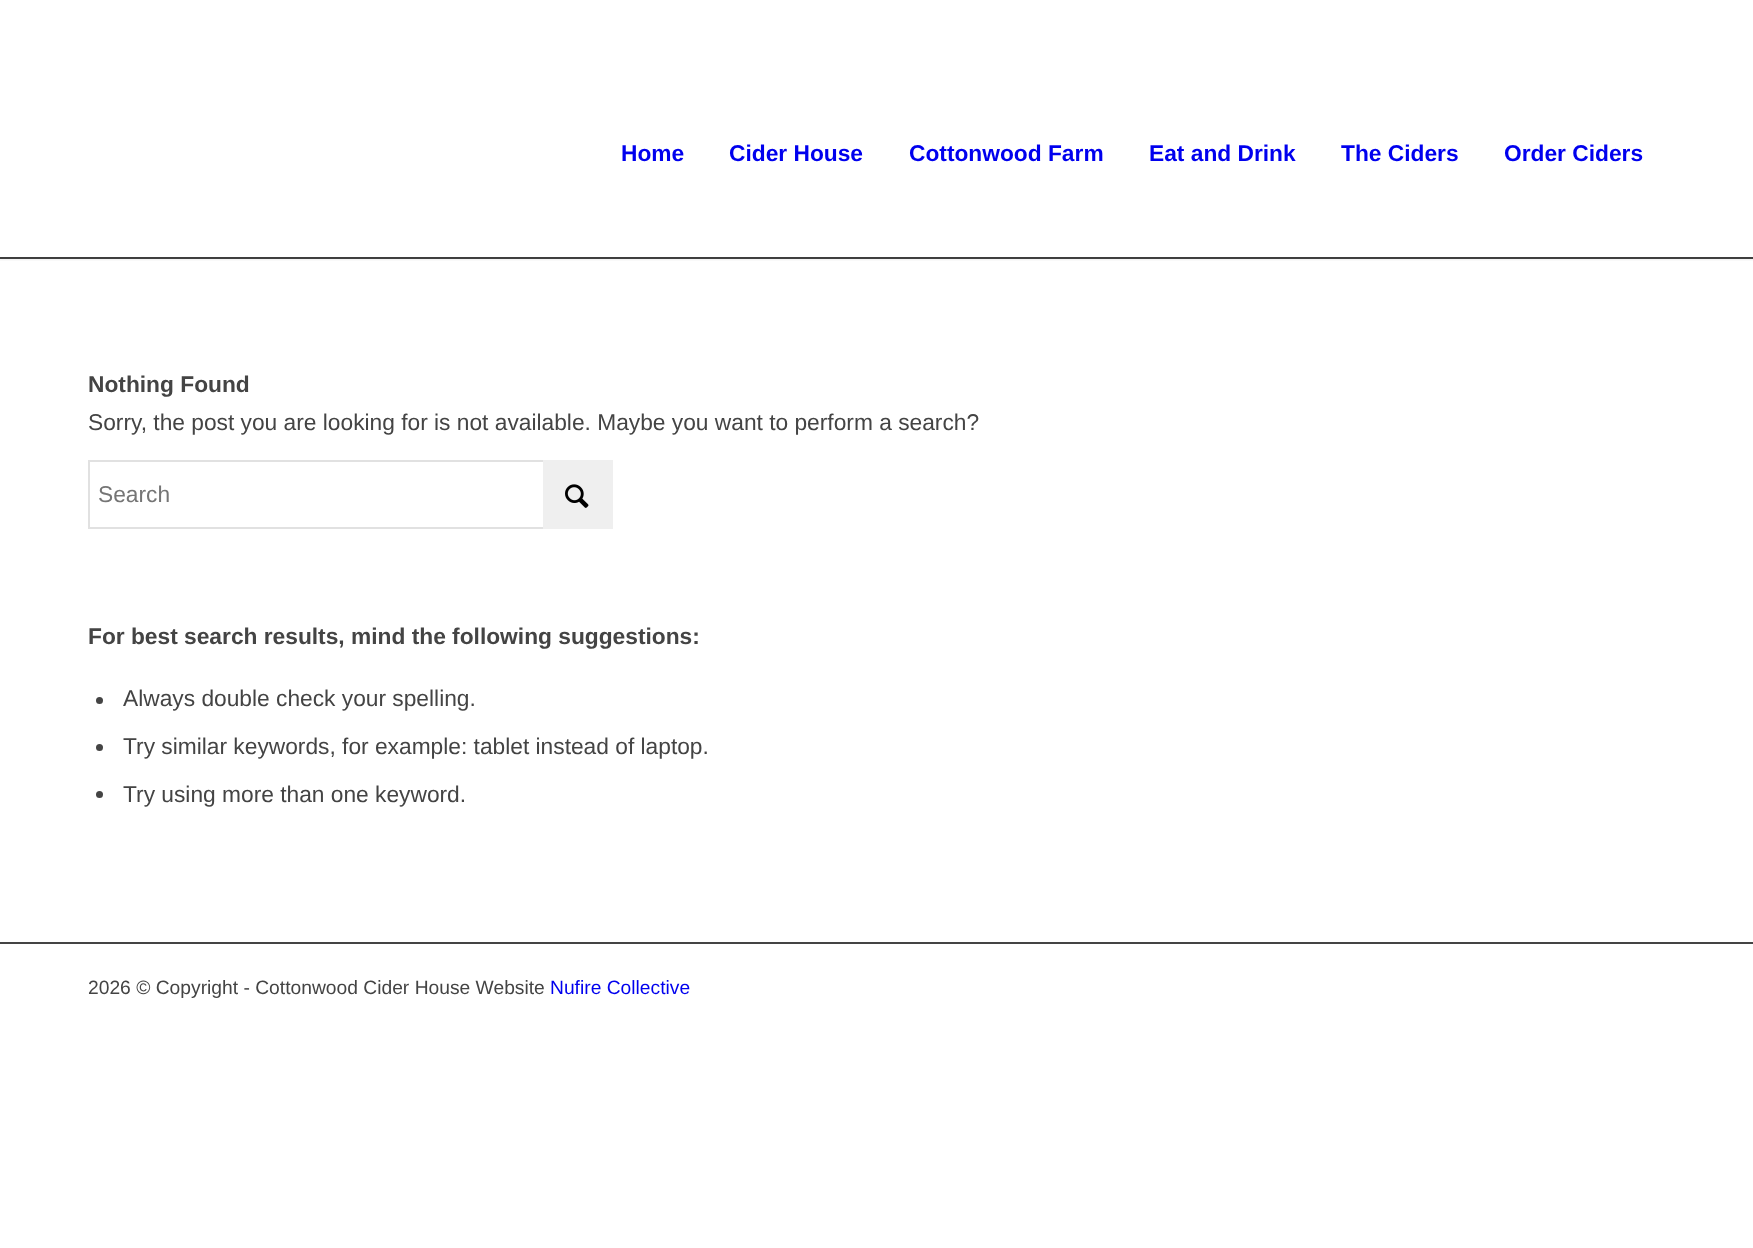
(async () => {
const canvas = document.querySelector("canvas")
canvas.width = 1753
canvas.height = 1248
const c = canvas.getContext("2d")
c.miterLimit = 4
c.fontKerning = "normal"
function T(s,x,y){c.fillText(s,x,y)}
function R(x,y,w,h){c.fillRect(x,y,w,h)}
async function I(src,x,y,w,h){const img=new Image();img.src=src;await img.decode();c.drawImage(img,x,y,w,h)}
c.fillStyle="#fff"
R(0,0,1753,1248)
c.fillStyle="#444"
R(0,257,1753,2)
c.save()
c.beginPath()
c.rect(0,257,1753,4)
c.clip()
c.fillStyle="#0000001a"
c.filter="blur(2px)"
c.beginPath()
c.rect(-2,-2,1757,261)
c.fill()
c.filter="none"
c.restore()
c.font="bold 22.75px Liberation Sans"
c.fillStyle="#00e"
T("Home",621,161)
T("Cider House",729,161)
T("Cottonwood Farm",909,161)
T("Eat and Drink",1149,161)
T("The Ciders",1341,161)
T("Order Ciders",1504,161)
c.fillStyle="#444"
T("Nothing Found",88,392)
c.font="22.75px Liberation Sans"
T("Sorry, the post you are looking for is not available. Maybe you want to perform a search?",88,430)
c.strokeStyle="#e1e1e1"
c.lineWidth=2
c.strokeRect(89,461,523,67)
c.fillStyle="#efefef"
R(543,460,70,69)
c.fillStyle="#757575"
T("Search",98,502)
await I("1.png",565,484,24,24)
c.font="bold 22.75px Liberation Sans"
c.fillStyle="#444"
T("For best search results, mind the following suggestions:",88,644)
c.beginPath()
c.arc(99.5,700.5,3.5,0,7)
c.fill()
c.font="22.75px Liberation Sans"
T("Always double check your spelling.",123,706)
c.beginPath()
c.arc(99.5,747.5,3.5,0,7)
c.fill()
T("Try similar keywords, for example: tablet instead of laptop.",123,754)
c.beginPath()
c.arc(99.5,794.5,3.5,0,7)
c.fill()
T("Try using more than one keyword.",123,802)
R(0,942,1753,2)
c.font="19.25px Liberation Sans"
T("2026 © Copyright - Cottonwood Cider House Website",88,994)
c.fillStyle="#00e"
T("Nufire Collective",550,994)
})()
